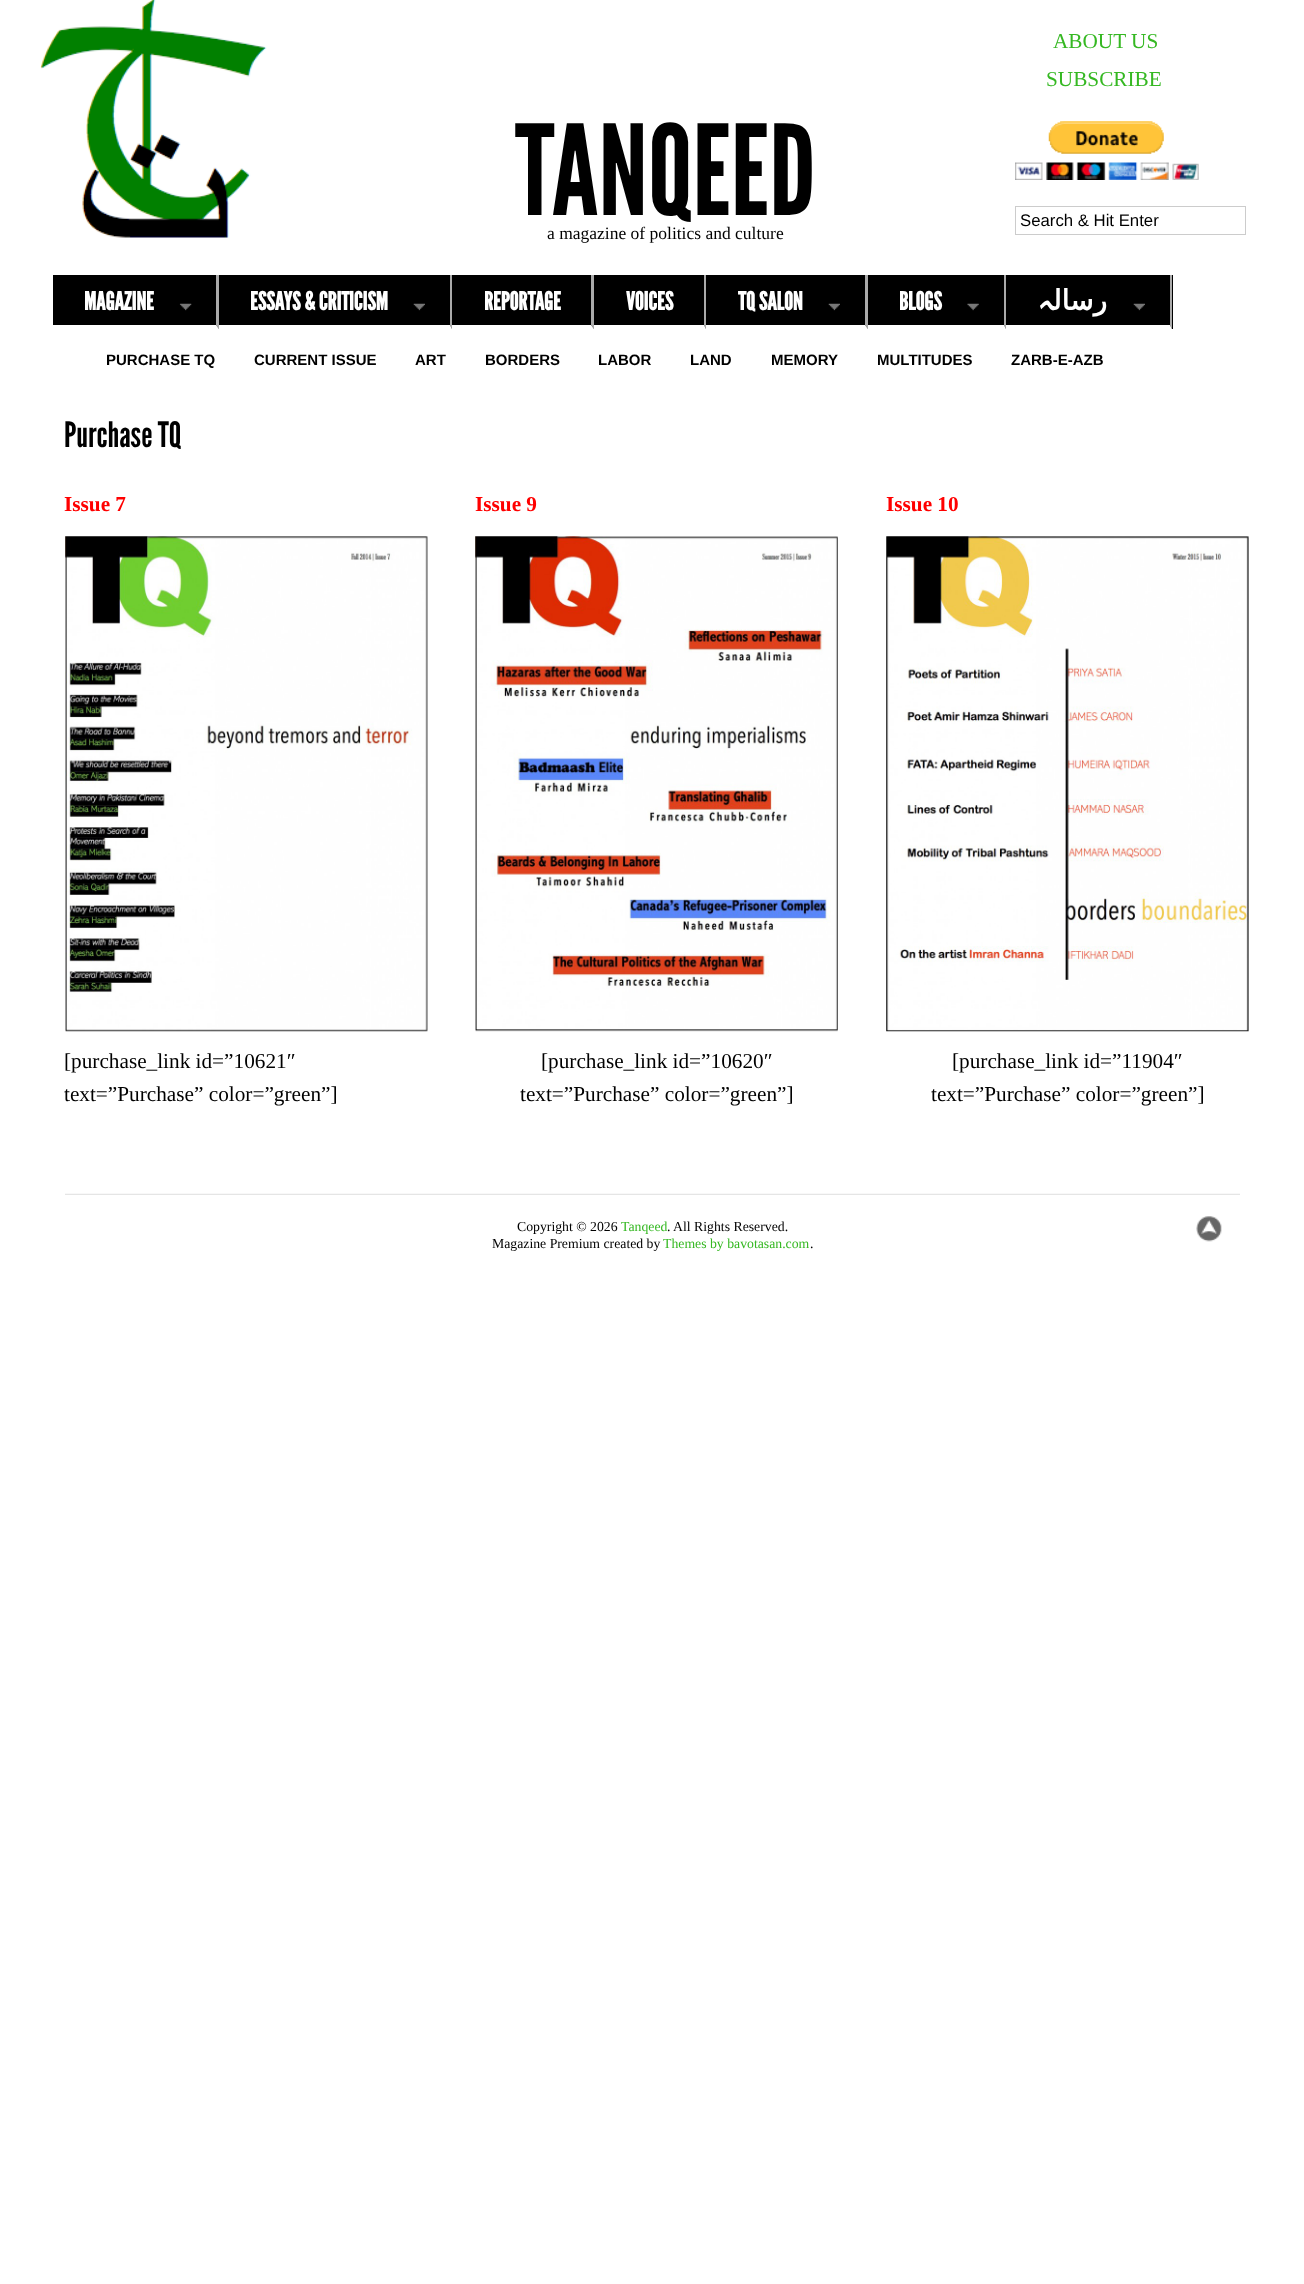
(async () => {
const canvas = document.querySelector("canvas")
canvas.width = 1304
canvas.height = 2284
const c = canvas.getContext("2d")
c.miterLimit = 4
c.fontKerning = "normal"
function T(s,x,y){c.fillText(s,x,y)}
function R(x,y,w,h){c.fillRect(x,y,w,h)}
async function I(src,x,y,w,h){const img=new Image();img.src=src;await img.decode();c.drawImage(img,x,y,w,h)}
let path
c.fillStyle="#fff"
R(0,0,1304,2284)
await I("1.png",40,0,227,238)
c.font="21.25px Liberation Serif"
c.fillStyle="#35b822"
T("ABOUT US",1053,48)
T("SUBSCRIBE",1046,86)
c.font="125px League Gothic"
c.fillStyle="#000"
T("TANQEED",515,215)
await I("2.png",1015,121,184,59)
c.strokeStyle="#ccc"
c.strokeRect(1015.5,206.5,230,28)
c.font="16.75px Liberation Sans"
T("Search & Hit Enter",1020,226)
c.font="17.5px Liberation Serif"
T("a magazine of politics and culture",547,239)
R(53,275,1120,54)
c.fillStyle="#aaa"
path = new Path2D("M219 275v54l-3-4v-50z")
c.fill(path)
c.fillStyle="#fff"
path = new Path2D("M219 329h-167v-4h164z")
c.fill(path)
c.font="bold 25px League Gothic"
T("MAGAZINE",84,310)
await I("3.png",179,303,13,8)
c.fillStyle="#aaa"
path = new Path2D("M452 275v54l-2-4v-50z")
c.fill(path)
c.fillStyle="#fff"
path = new Path2D("M452 329h-233v-4h231z")
c.fill(path)
T("ESSAYS & CRITICISM",250,310)
await I("4.png",413,303,12,8)
c.fillStyle="#aaa"
path = new Path2D("M594 275v54l-3-4v-50z")
c.fill(path)
c.fillStyle="#fff"
path = new Path2D("M594 329h-142v-4h139z")
c.fill(path)
T("REPORTAGE",484,310)
c.fillStyle="#aaa"
path = new Path2D("M706 275v54l-2-4v-50z")
c.fill(path)
c.fillStyle="#fff"
path = new Path2D("M706 329h-112v-4h110z")
c.fill(path)
T("VOICES",626,310)
c.fillStyle="#aaa"
path = new Path2D("M868 275v54l-3-4v-50z")
c.fill(path)
c.fillStyle="#fff"
path = new Path2D("M868 329h-162v-4h159z")
c.fill(path)
T("TQ SALON",738,310)
await I("4.png",828,303,12,8)
c.fillStyle="#aaa"
path = new Path2D("M1006 275v54l-2-4v-50z")
c.fill(path)
c.fillStyle="#fff"
path = new Path2D("M1006 329h-138v-4h136z")
c.fill(path)
T("BLOGS",899,310)
await I("5.png",967,303,12,8)
c.fillStyle="#aaa"
path = new Path2D("M1172 275v54l-2-4v-50z")
c.fill(path)
c.fillStyle="#fff"
path = new Path2D("M1172 329h-166v-4h164z")
c.fill(path)
c.direction="rtl"
c.font="bold 28px Cascadia Code"
T("‍ہ",1054,310)
c.font="bold 28px DejaVu Sans"
T("رسال‍",1107,310)
await I("4.png",1133,303,12,8)
c.direction="ltr"
c.font="bold 15px Liberation Sans"
c.fillStyle="#000"
T("PURCHASE TQ",106,365)
T("CURRENT ISSUE",254,365)
T("ART",415,365)
T("BORDERS",485,365)
T("LABOR",598,365)
T("LAND",690,365)
T("MEMORY",771,365)
T("MULTITUDES",877,365)
T("ZARB-E-AZB",1011,365)
c.font="35px League Gothic"
T("Purchase TQ",64,447)
c.font="bold 21.25px Liberation Serif"
c.fillStyle="#f00"
T("Issue 7",64,511)
await I("6.png",65,536,363,496)
c.font="21.25px Liberation Serif"
c.fillStyle="#000"
T("[purchase_link id=”10621″",64,1068)
T("text=”Purchase” color=”green”]",64,1101)
c.font="bold 21.25px Liberation Serif"
c.fillStyle="#f00"
T("Issue 9",475,511)
await I("7.png",475,536,363,496)
c.font="21.25px Liberation Serif"
c.fillStyle="#000"
T("[purchase_link id=”10620″",541,1068)
T("text=”Purchase” color=”green”]",520,1101)
c.font="bold 21.25px Liberation Serif"
c.fillStyle="#f00"
T("Issue 10",886,511)
await I("8.png",886,536,363,496)
c.font="21.25px Liberation Serif"
c.fillStyle="#000"
T("[purchase_link id=”11904″",952,1068)
T("text=”Purchase” color=”green”]",931,1101)
await I("9.png",65,1193,1175,2)
c.font="13.75px Liberation Serif"
T("Copyright © 2026",517,1231)
c.fillStyle="#35b822"
T("Tanqeed",621,1231)
c.fillStyle="#000"
T(". All Rights Reserved.",667,1231)
await I("10.png",1196,1216,26,26)
T("Magazine Premium created by",492,1248)
c.fillStyle="#35b822"
T("Themes by bavotasan.com",663,1248)
c.fillStyle="#000"
T(".",810,1248)
})()
